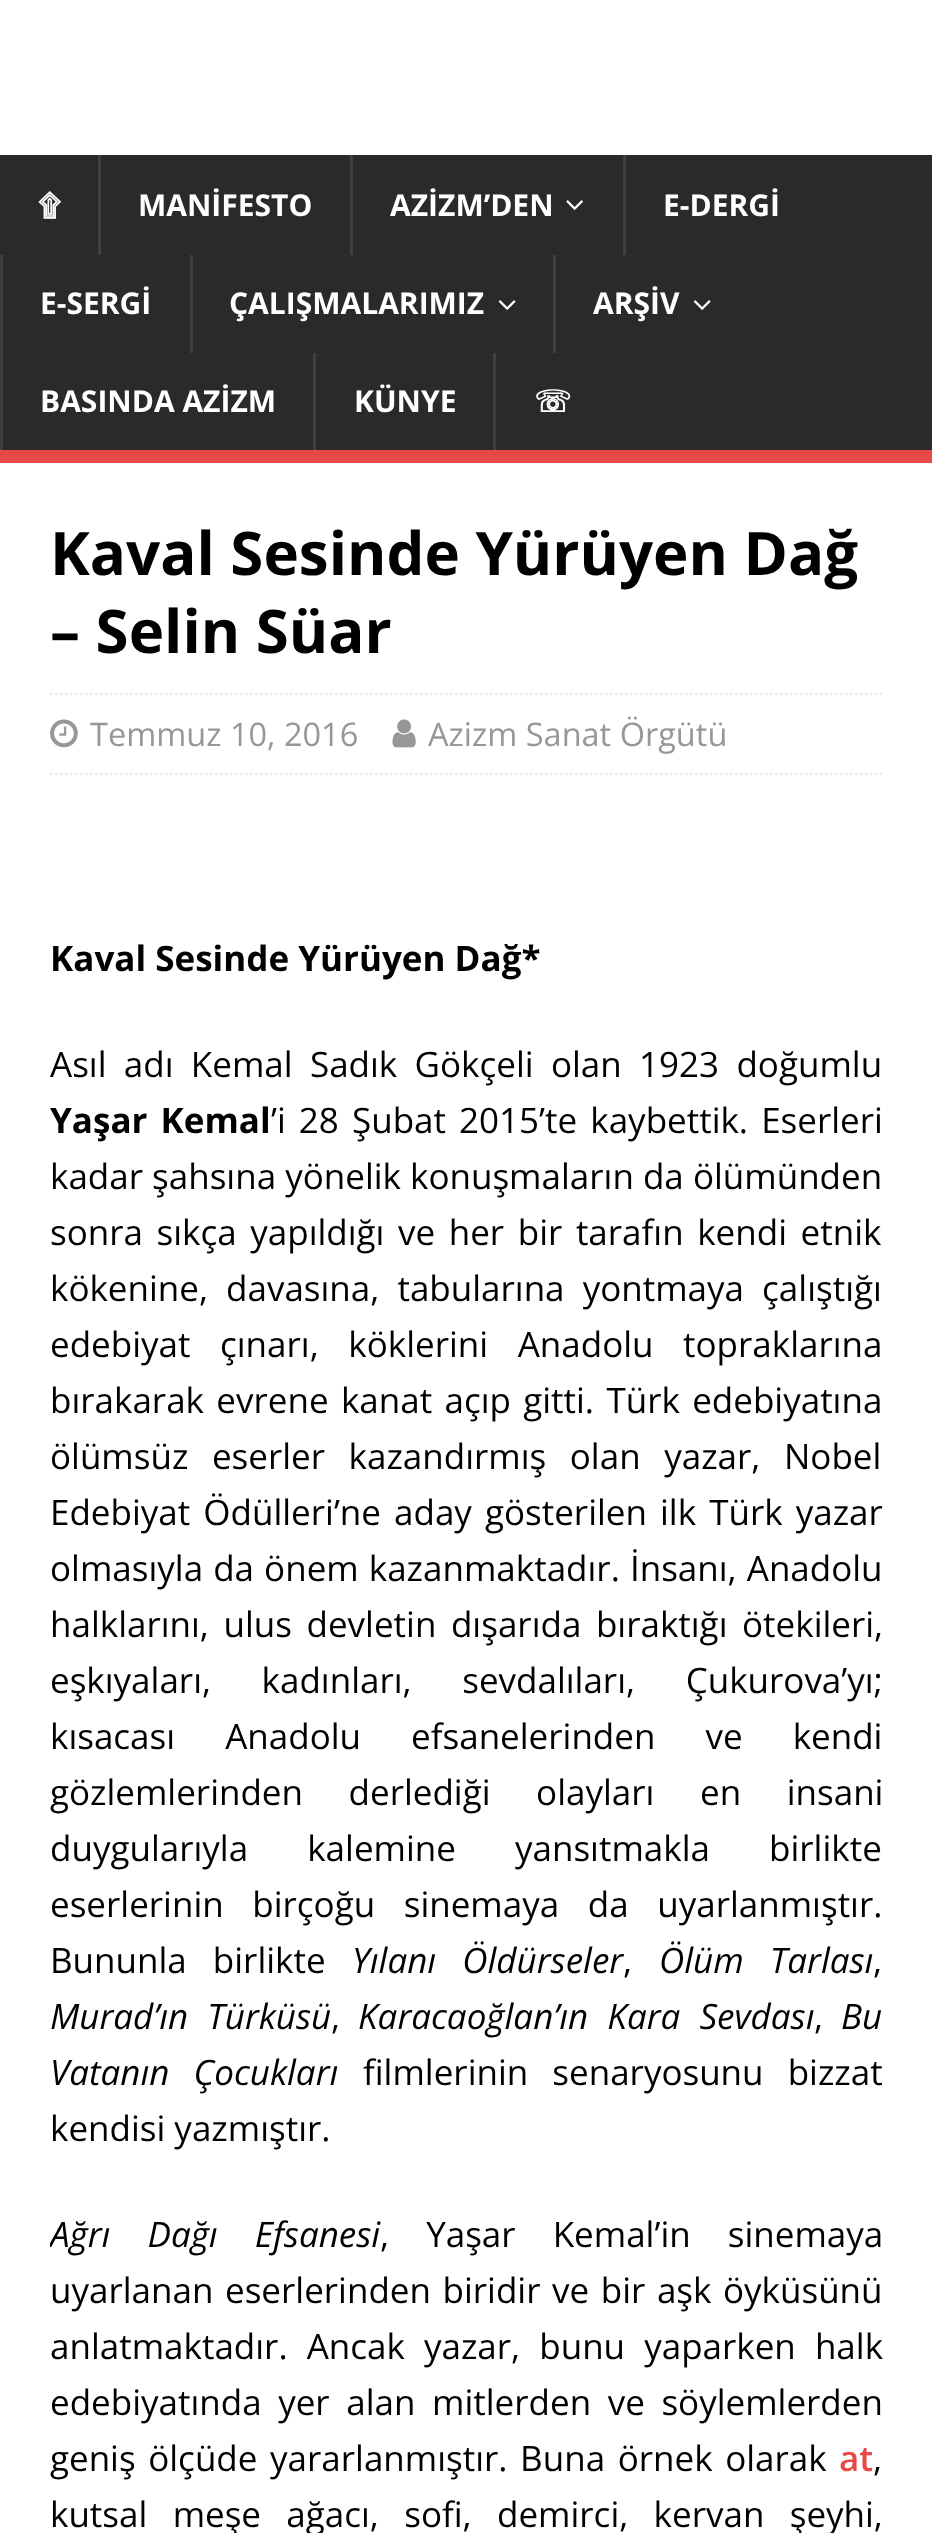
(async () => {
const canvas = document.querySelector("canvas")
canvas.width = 932
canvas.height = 2533
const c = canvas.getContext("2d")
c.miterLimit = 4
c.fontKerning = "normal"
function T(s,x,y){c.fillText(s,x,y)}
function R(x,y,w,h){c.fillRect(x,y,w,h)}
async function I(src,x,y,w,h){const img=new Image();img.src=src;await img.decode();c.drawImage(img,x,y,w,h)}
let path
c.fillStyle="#fff"
R(0,0,932,2533)
c.fillStyle="#2a2a2a"
R(0,155,932,295)
c.fillStyle="#e64946"
R(0,450,932,13)
c.font="bold 30px FreeSerif"
c.fillStyle="#fff"
T("۩",38,216)
c.fillStyle="#3f3f3f"
R(98,155,3,100)
c.font="bold 30px Open Sans"
c.fillStyle="#fff"
T("MANİFESTO",138,216)
c.fillStyle="#3f3f3f"
R(350,155,3,100)
c.fillStyle="#fff"
T("AZİZM’DEN",390,216)
await I("1.png",566,200,17,10)
c.fillStyle="#3f3f3f"
R(623,155,3,100)
c.fillStyle="#fff"
T("E-DERGİ",663,216)
c.fillStyle="#3f3f3f"
R(0,255,3,195)
c.fillStyle="#fff"
T("E-SERGİ",40,314)
c.fillStyle="#3f3f3f"
R(190,255,3,98)
c.fillStyle="#fff"
T("ÇALIŞMALARIMIZ",229,314)
await I("2.png",498,300,18,10)
c.fillStyle="#3f3f3f"
R(553,255,3,98)
c.fillStyle="#fff"
T("ARŞİV",593,314)
await I("2.png",693,300,18,10)
T("BASINDA AZİZM",40,412)
c.fillStyle="#3f3f3f"
R(313,353,3,97)
c.fillStyle="#fff"
T("KÜNYE",354,412)
c.fillStyle="#3f3f3f"
R(493,353,3,97)
c.font="bold 30px DejaVu Sans"
c.fillStyle="#fff"
T("☏",534,412)
c.font="bold 60px Open Sans"
c.fillStyle="#000"
T("Kaval Sesinde Yürüyen Dağ",50,575)
T("– Selin Süar",50,653)
path = new Path2D("M50 694h832.5")
c.strokeStyle="#ebebeb"
c.lineWidth=2.5
c.setLineDash([2.5,2.5])
c.stroke(path)
path = new Path2D("M50 774h832.5")
c.stroke(path)
await I("3.png",50,719,28,29)
c.font="32.5px Open Sans"
c.fillStyle="#979797"
T("Temmuz 10, 2016",90,746)
await I("4.png",392,719,24,29)
T("Azizm Sanat Örgütü",428,746)
c.font="bold 35px Open Sans"
c.fillStyle="#000"
T("Kaval Sesinde Yürüyen Dağ*",50,971)
c.wordSpacing="8.25px"
c.font="35px Open Sans"
T("Asıl adı Kemal Sadık Gökçeli olan 1923 doğumlu",50,1077)
c.wordSpacing="4px"
c.font="bold 35px Open Sans"
T("Yaşar Kemal",50,1133)
c.font="35px Open Sans"
T("’i 28 Şubat 2015’te kaybettik. Eserleri",271,1133)
c.wordSpacing="0px"
T("kadar şahsına yönelik konuşmaların da ölümünden",50,1189)
c.wordSpacing="4.5px"
T("sonra sıkça yapıldığı ve her bir tarafın kendi etnik",50,1245)
c.wordSpacing="9px"
T("kökenine, davasına, tabularına yontmaya çalıştığı",50,1301)
c.wordSpacing="20.5px"
T("edebiyat çınarı, köklerini Anadolu topraklarına",50,1357)
c.wordSpacing="3.25px"
T("bırakarak evrene kanat açıp gitti. Türk edebiyatına",50,1413)
c.wordSpacing="14.5px"
T("ölümsüz eserler kazandırmış olan yazar, Nobel",50,1469)
c.wordSpacing="4px"
T("Edebiyat Ödülleri’ne aday gösterilen ilk Türk yazar",50,1525)
c.wordSpacing="1px"
T("olmasıyla da önem kazanmaktadır. İnsanı, Anadolu",50,1581)
c.wordSpacing="5.5px"
T("halklarını, ulus devletin dışarıda bıraktığı ötekileri,",50,1637)
c.wordSpacing="41.5px"
T("eşkıyaları, kadınları, sevdalıları, Çukurova’yı;",50,1693)
c.wordSpacing="41px"
T("kısacası Anadolu efsanelerinden ve kendi",50,1749)
c.wordSpacing="36.5px"
T("gözlemlerinden derlediği olayları en insani",50,1805)
c.wordSpacing="50px"
T("duygularıyla kalemine yansıtmakla birlikte",50,1861)
c.wordSpacing="19.5px"
T("eserlerinin birçoğu sinemaya da uyarlanmıştır.",50,1917)
c.wordSpacing="17px"
T("Bununla birlikte",50,1973)
c.font="italic 35px Open Sans"
T("Yılanı Öldürseler",352,1973)
c.wordSpacing="0px"
c.font="35px Open Sans"
T(",",623,1973)
c.wordSpacing="17px"
c.font="italic 35px Open Sans"
T("Ölüm Tarlası",659,1973)
c.wordSpacing="0px"
c.font="35px Open Sans"
T(",",873,1973)
c.wordSpacing="10px"
c.font="italic 35px Open Sans"
T("Murad’ın Türküsü",50,2029)
c.wordSpacing="0px"
c.font="35px Open Sans"
T(",",331,2029)
c.wordSpacing="10px"
c.font="italic 35px Open Sans"
T("Karacaoğlan’ın Kara Sevdası",358,2029)
c.wordSpacing="0px"
c.font="35px Open Sans"
T(",",814,2029)
c.font="italic 35px Open Sans"
T("Bu",841,2029)
c.wordSpacing="15px"
T("Vatanın Çocukları",50,2085)
c.font="35px Open Sans"
T("filmlerinin senaryosunu bizzat",363,2085)
c.wordSpacing="0px"
T("kendisi yazmıştır.",50,2141)
c.save()
c.beginPath()
c.rect(50,513,833,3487)
c.clip()
c.wordSpacing="28px"
c.font="italic 35px Open Sans"
T("Ağrı Dağı Efsanesi",50,2247)
c.restore()
c.wordSpacing="28px"
T(", Yaşar Kemal’in sinemaya",380,2247)
c.wordSpacing="2.5px"
T("uyarlanan eserlerinden biridir ve bir aşk öyküsünü",50,2303)
c.wordSpacing="10px"
T("anlatmaktadır. Ancak yazar, bunu yaparken halk",50,2359)
c.wordSpacing="7.5px"
T("edebiyatında yer alan mitlerden ve söylemlerden",50,2415)
c.wordSpacing="3.5px"
T("geniş ölçüde yararlanmıştır. Buna örnek olarak",50,2471)
c.wordSpacing="0px"
c.font="600 35px Open Sans"
c.fillStyle="#e64946"
T("at",839,2471)
c.font="35px Open Sans"
c.fillStyle="#000"
T(",",873,2471)
c.wordSpacing="16.25px"
T("kutsal meşe ağacı, sofi, demirci, kervan şeyhi,",50,2527)
})()
